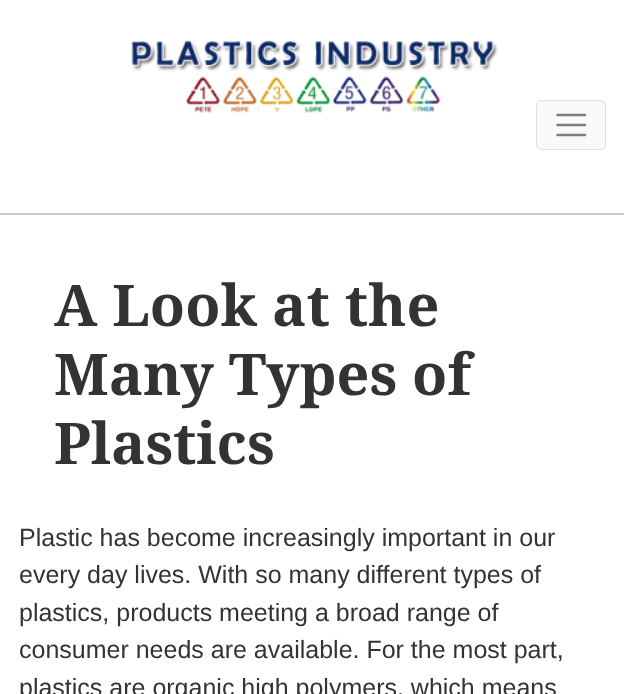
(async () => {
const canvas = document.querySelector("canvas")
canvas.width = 624
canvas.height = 694
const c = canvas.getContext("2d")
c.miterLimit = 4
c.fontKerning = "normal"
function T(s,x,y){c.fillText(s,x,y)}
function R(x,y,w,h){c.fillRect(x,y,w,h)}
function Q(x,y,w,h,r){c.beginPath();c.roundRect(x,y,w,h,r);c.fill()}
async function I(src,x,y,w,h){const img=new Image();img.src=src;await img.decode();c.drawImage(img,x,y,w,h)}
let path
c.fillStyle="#fff"
R(0,0,624,694)
c.fillStyle="#ccc"
R(0,213,624,2)
await I("1.png",131,40,367,73)
c.fillStyle="#f8f9fa"
Q(536,100,70,50,5)
c.beginPath()
c.roundRect(536.5,100.5,69,49,4.5)
c.strokeStyle="#0000001a"
c.stroke()
path = new Path2D("M557.5 115h27.5m-27.5 10h27.5m-27.5 10h27.5")
c.strokeStyle="#7c7d7d"
c.lineWidth=2.5
c.lineCap="round"
c.stroke(path)
c.font="bold 57.5px Noto Serif"
c.fillStyle="#333"
T("A Look at the",54,326)
T("Many Types of",54,395)
T("Plastics",54,464)
c.font="25px Liberation Sans"
T("Plastic has become increasingly important in our",19,546)
T("every day lives. With so many different types of",19,583)
T("plastics, products meeting a broad range of",19,621)
T("consumer needs are available. For the most part,",19,658)
T("plastics are organic high polymers, which means",19,696)
})()
